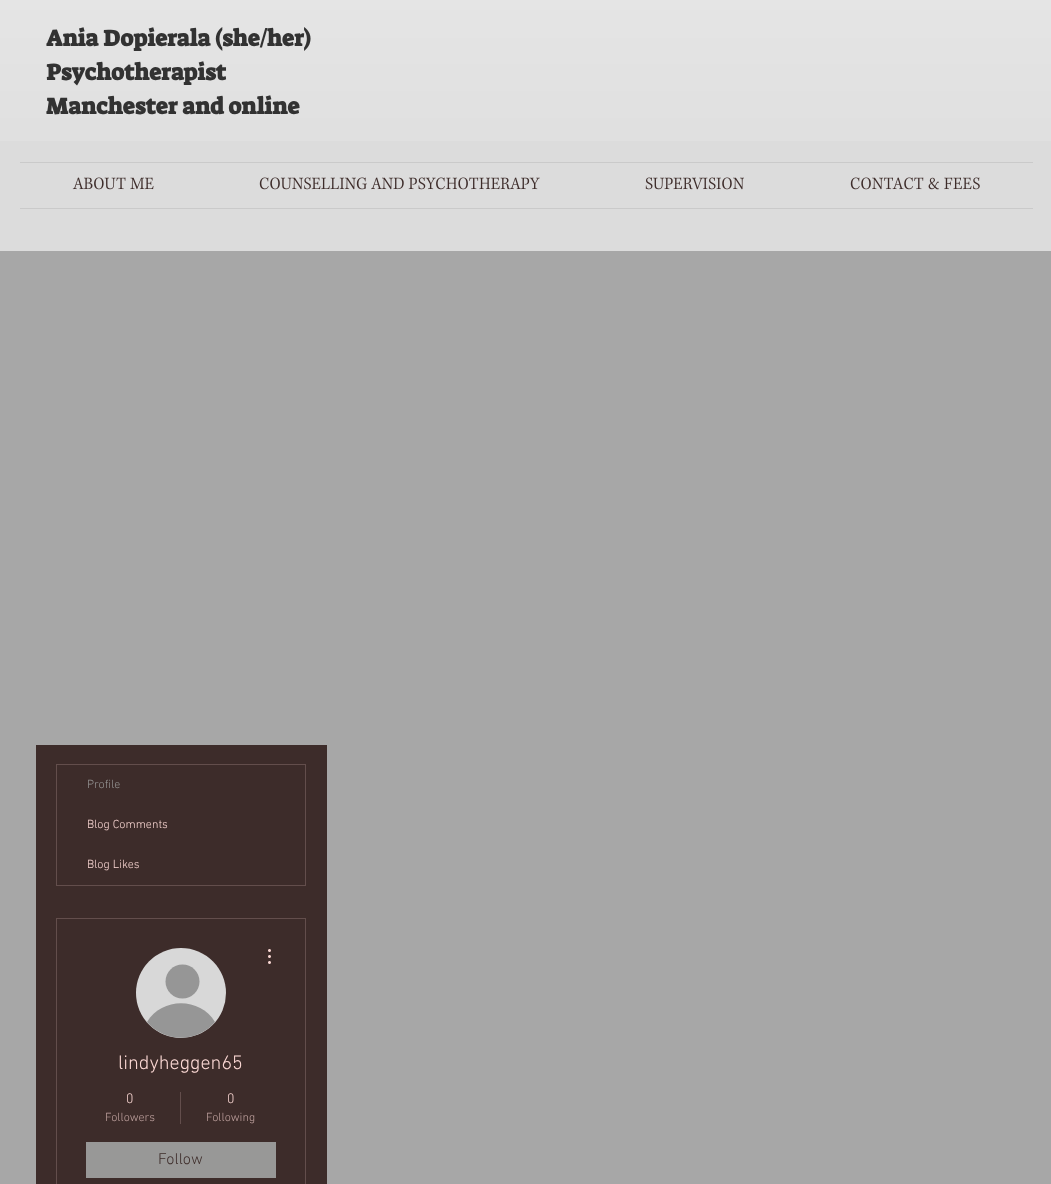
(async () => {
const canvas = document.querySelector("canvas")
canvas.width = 1051
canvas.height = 1184
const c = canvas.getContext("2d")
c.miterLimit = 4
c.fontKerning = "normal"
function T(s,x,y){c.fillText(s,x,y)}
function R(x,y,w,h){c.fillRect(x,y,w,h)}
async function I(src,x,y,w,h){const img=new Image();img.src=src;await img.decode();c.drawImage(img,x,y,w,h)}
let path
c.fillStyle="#a7a7a7"
R(0,0,1051,1184)
c.fillStyle="#dcdcdc"
R(0,0,1051,251)
await I("1.png",0,0,1051,141)
c.font="bold 23px Suez One"
c.fillStyle="#323232"
T("Ania Dopierala (she/her)",46,46)
T("Psychotherapist",46,80)
T("Manchester and online",46,114)
c.fillStyle="#cacaca"
R(20,162,1013,1)
R(20,208,1013,1)
await I("2.png",72,177,82,13)
await I("3.png",259,177,281,13)
await I("4.png",645,177,99,13)
await I("5.png",850,177,130,13)
c.fillStyle="#3d2c2a"
R(36,745,291,439)
c.strokeStyle="#634e4c"
c.strokeRect(56.5,764.5,249,121)
c.font="300 12px 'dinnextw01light'"
c.fillStyle="#989897"
T("Profile",87,788)
c.fillStyle="#fbd8d4"
T("Blog Comments",87,828)
T("Blog Likes",87,868)
c.strokeRect(56.5,918.5,249,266)
c.fillStyle="#d8d8d8"
c.beginPath()
c.arc(181,993,45,0,7)
c.fill()
c.fillStyle="#969696"
c.beginPath()
c.arc(182.5,981.5,17,0,7)
c.fill()
path = new Path2D("M215 1022c-18 21-50 21-68 0c15-25 53-25 68 0z")
c.fill(path)
await I("6.png",268,949,3,15)
c.font="300 20px 'dinnextw01light'"
c.fillStyle="#fbd8d4"
T("lindyheggen65",118,1069)
c.font="300 14px 'dinnextw01light'"
T("0",126,1103)
c.font="300 12px 'dinnextw01light'"
c.fillStyle="#c2a4a1"
T("Followers",105,1121)
c.fillStyle="#634e4c"
R(180,1092,1,32)
c.font="300 14px 'dinnextw01light'"
c.fillStyle="#fbd8d4"
T("0",227,1103)
c.font="300 12px 'dinnextw01light'"
c.fillStyle="#c2a4a1"
T("Following",206,1121)
c.fillStyle="#989897"
R(86,1142,190,36)
c.font="300 16px 'dinnextw01light'"
c.fillStyle="#3d2c2a"
T("Follow",158,1164)
})()
